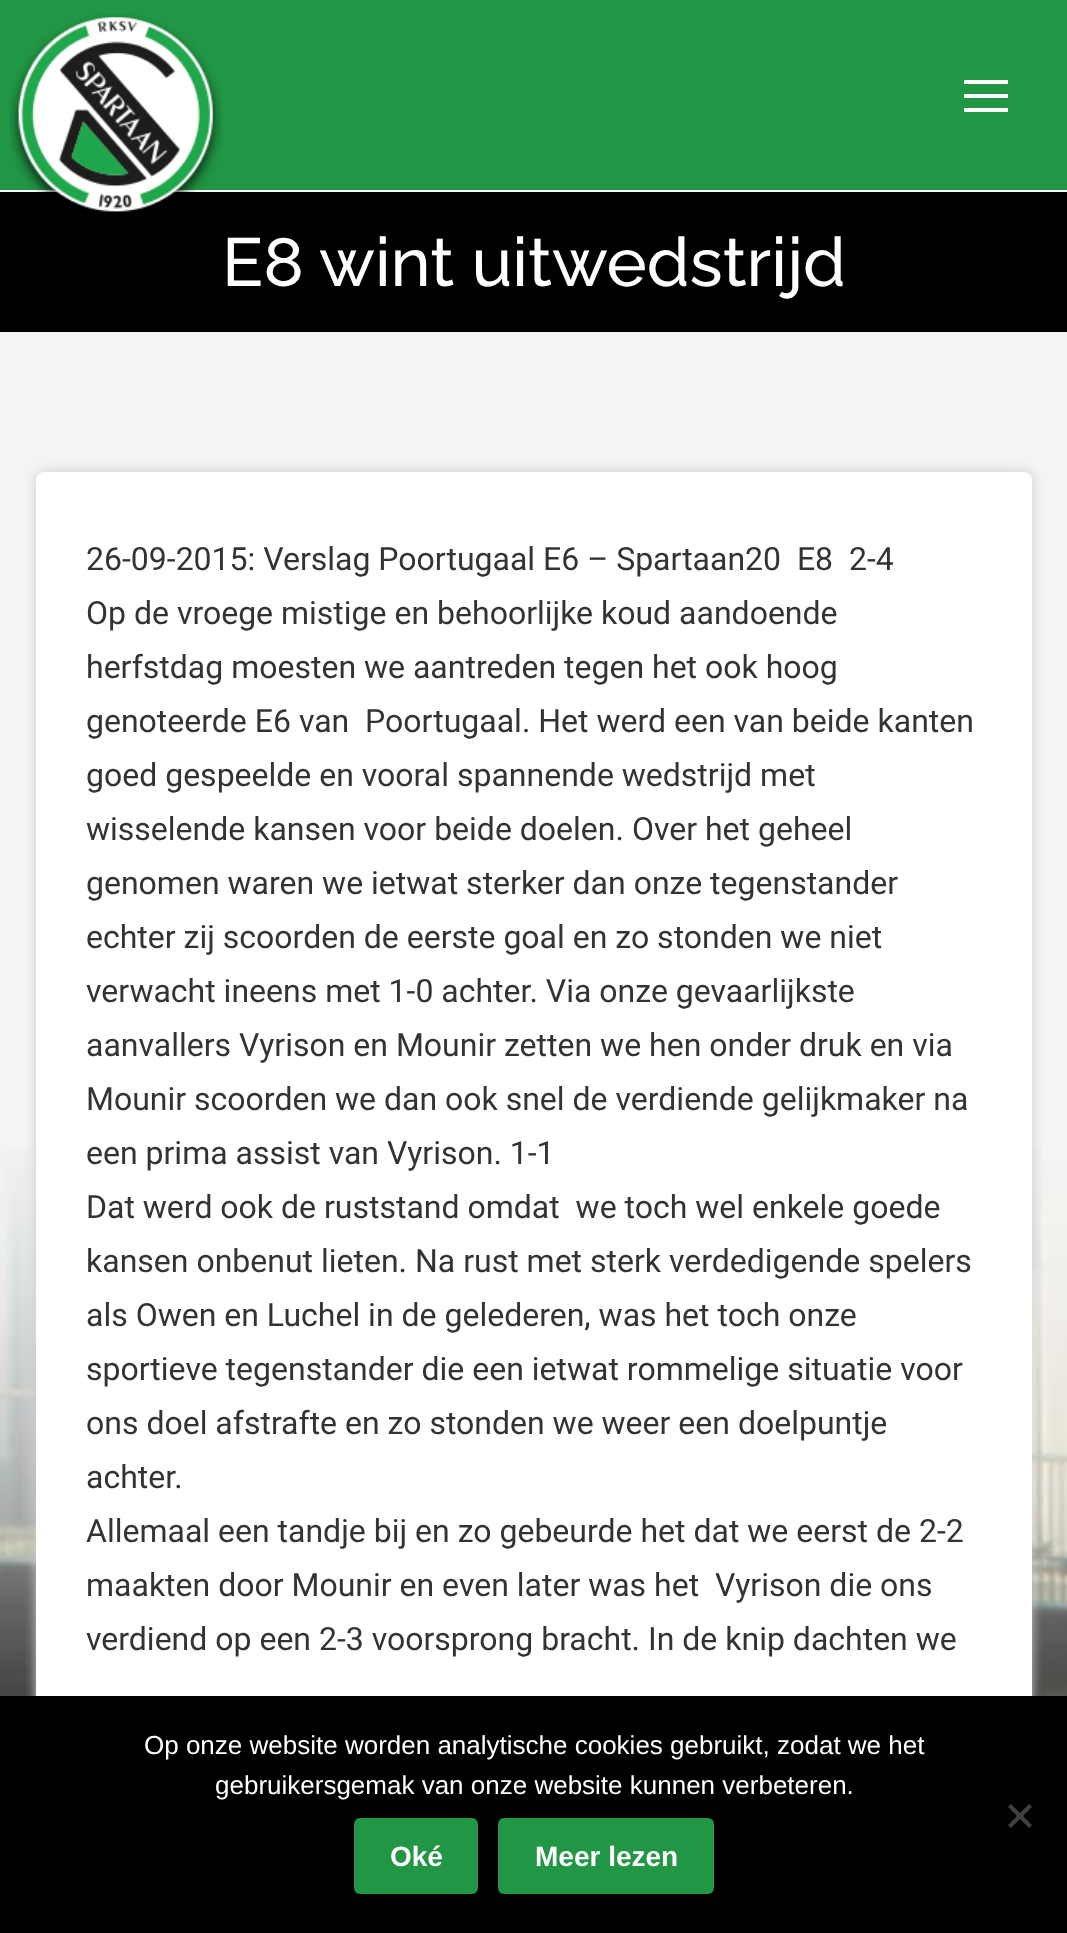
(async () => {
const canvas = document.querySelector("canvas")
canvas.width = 1067
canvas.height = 1933
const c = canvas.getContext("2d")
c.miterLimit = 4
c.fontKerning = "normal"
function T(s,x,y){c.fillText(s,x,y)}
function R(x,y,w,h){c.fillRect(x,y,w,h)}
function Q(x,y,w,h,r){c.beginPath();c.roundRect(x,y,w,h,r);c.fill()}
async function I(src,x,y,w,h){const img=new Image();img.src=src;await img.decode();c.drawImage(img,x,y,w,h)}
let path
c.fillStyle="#f4f4f4"
R(0,0,1067,1933)
await I("1.png",0,1146,1067,550)
c.fillStyle="#219644"
R(0,0,1067,190)
c.fillStyle="#fff"
R(0,190,1067,2)
c.fillStyle="#000"
R(0,192,1067,140)
await I("2.png",10,14,213,198)
c.fillStyle="#fff"
R(964,80,44,4)
R(964,94,44,4)
R(964,108,44,4)
c.font="500 68px Raleway"
T("E8 wint uitwedstrijd",222,286)
c.fillStyle="#ccc"
c.filter="blur(6px)"
c.beginPath()
c.roundRect(36,472,996,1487,8)
c.fill()
c.filter="none"
c.fillStyle="#fff"
Q(36,472,996,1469,8)
c.font="32px Roboto"
c.fillStyle="#333"
T("26-09-2015: Verslag Poortugaal E6 – Spartaan20  E8  2-4",86,570)
T("Op de vroege mistige en behoorlijke koud aandoende",86,624)
T("herfstdag moesten we aantreden tegen het ook hoog",86,678)
T("genoteerde E6 van  Poortugaal. Het werd een van beide kanten",86,732)
T("goed gespeelde en vooral spannende wedstrijd met",86,786)
T("wisselende kansen voor beide doelen. Over het geheel",86,840)
T("genomen waren we ietwat sterker dan onze tegenstander",86,894)
T("echter zij scoorden de eerste goal en zo stonden we niet",86,948)
T("verwacht ineens met 1-0 achter. Via onze gevaarlijkste",86,1002)
T("aanvallers Vyrison en Mounir zetten we hen onder druk en via",86,1056)
T("Mounir scoorden we dan ook snel de verdiende gelijkmaker na",86,1110)
T("een prima assist van Vyrison. 1-1",86,1164)
T("Dat werd ook de ruststand omdat  we toch wel enkele goede",86,1218)
T("kansen onbenut lieten. Na rust met sterk verdedigende spelers",86,1272)
T("als Owen en Luchel in de gelederen, was het toch onze",86,1326)
T("sportieve tegenstander die een ietwat rommelige situatie voor",86,1380)
T("ons doel afstrafte en zo stonden we weer een doelpuntje",86,1434)
T("achter.",86,1488)
T("Allemaal een tandje bij en zo gebeurde het dat we eerst de 2-2",86,1542)
T("maakten door Mounir en even later was het  Vyrison die ons",86,1596)
T("verdiend op een 2-3 voorsprong bracht. In de knip dachten we",86,1650)
c.fillStyle="#000"
R(0,1696,1067,237)
c.font="26px Liberation Sans"
c.fillStyle="#fff"
T("Op onze website worden analytische cookies gebruikt, zodat we het",144,1754)
T("gebruikersgemak van onze website kunnen verbeteren.",215,1794)
c.fillStyle="#404040"
path = new Path2D("M1029 1804l3 3l-21 21l-3-3z")
c.fill(path)
path = new Path2D("M1008 1807l3-3l21 21l-3 3z")
c.fill(path)
c.fillStyle="#219644"
Q(354,1818,124,76,6)
c.font="bold 28px Liberation Sans"
c.fillStyle="#fff"
T("Oké",390,1866)
c.fillStyle="#219644"
Q(498,1818,216,76,6)
c.fillStyle="#fff"
T("Meer lezen",535,1866)
})()
